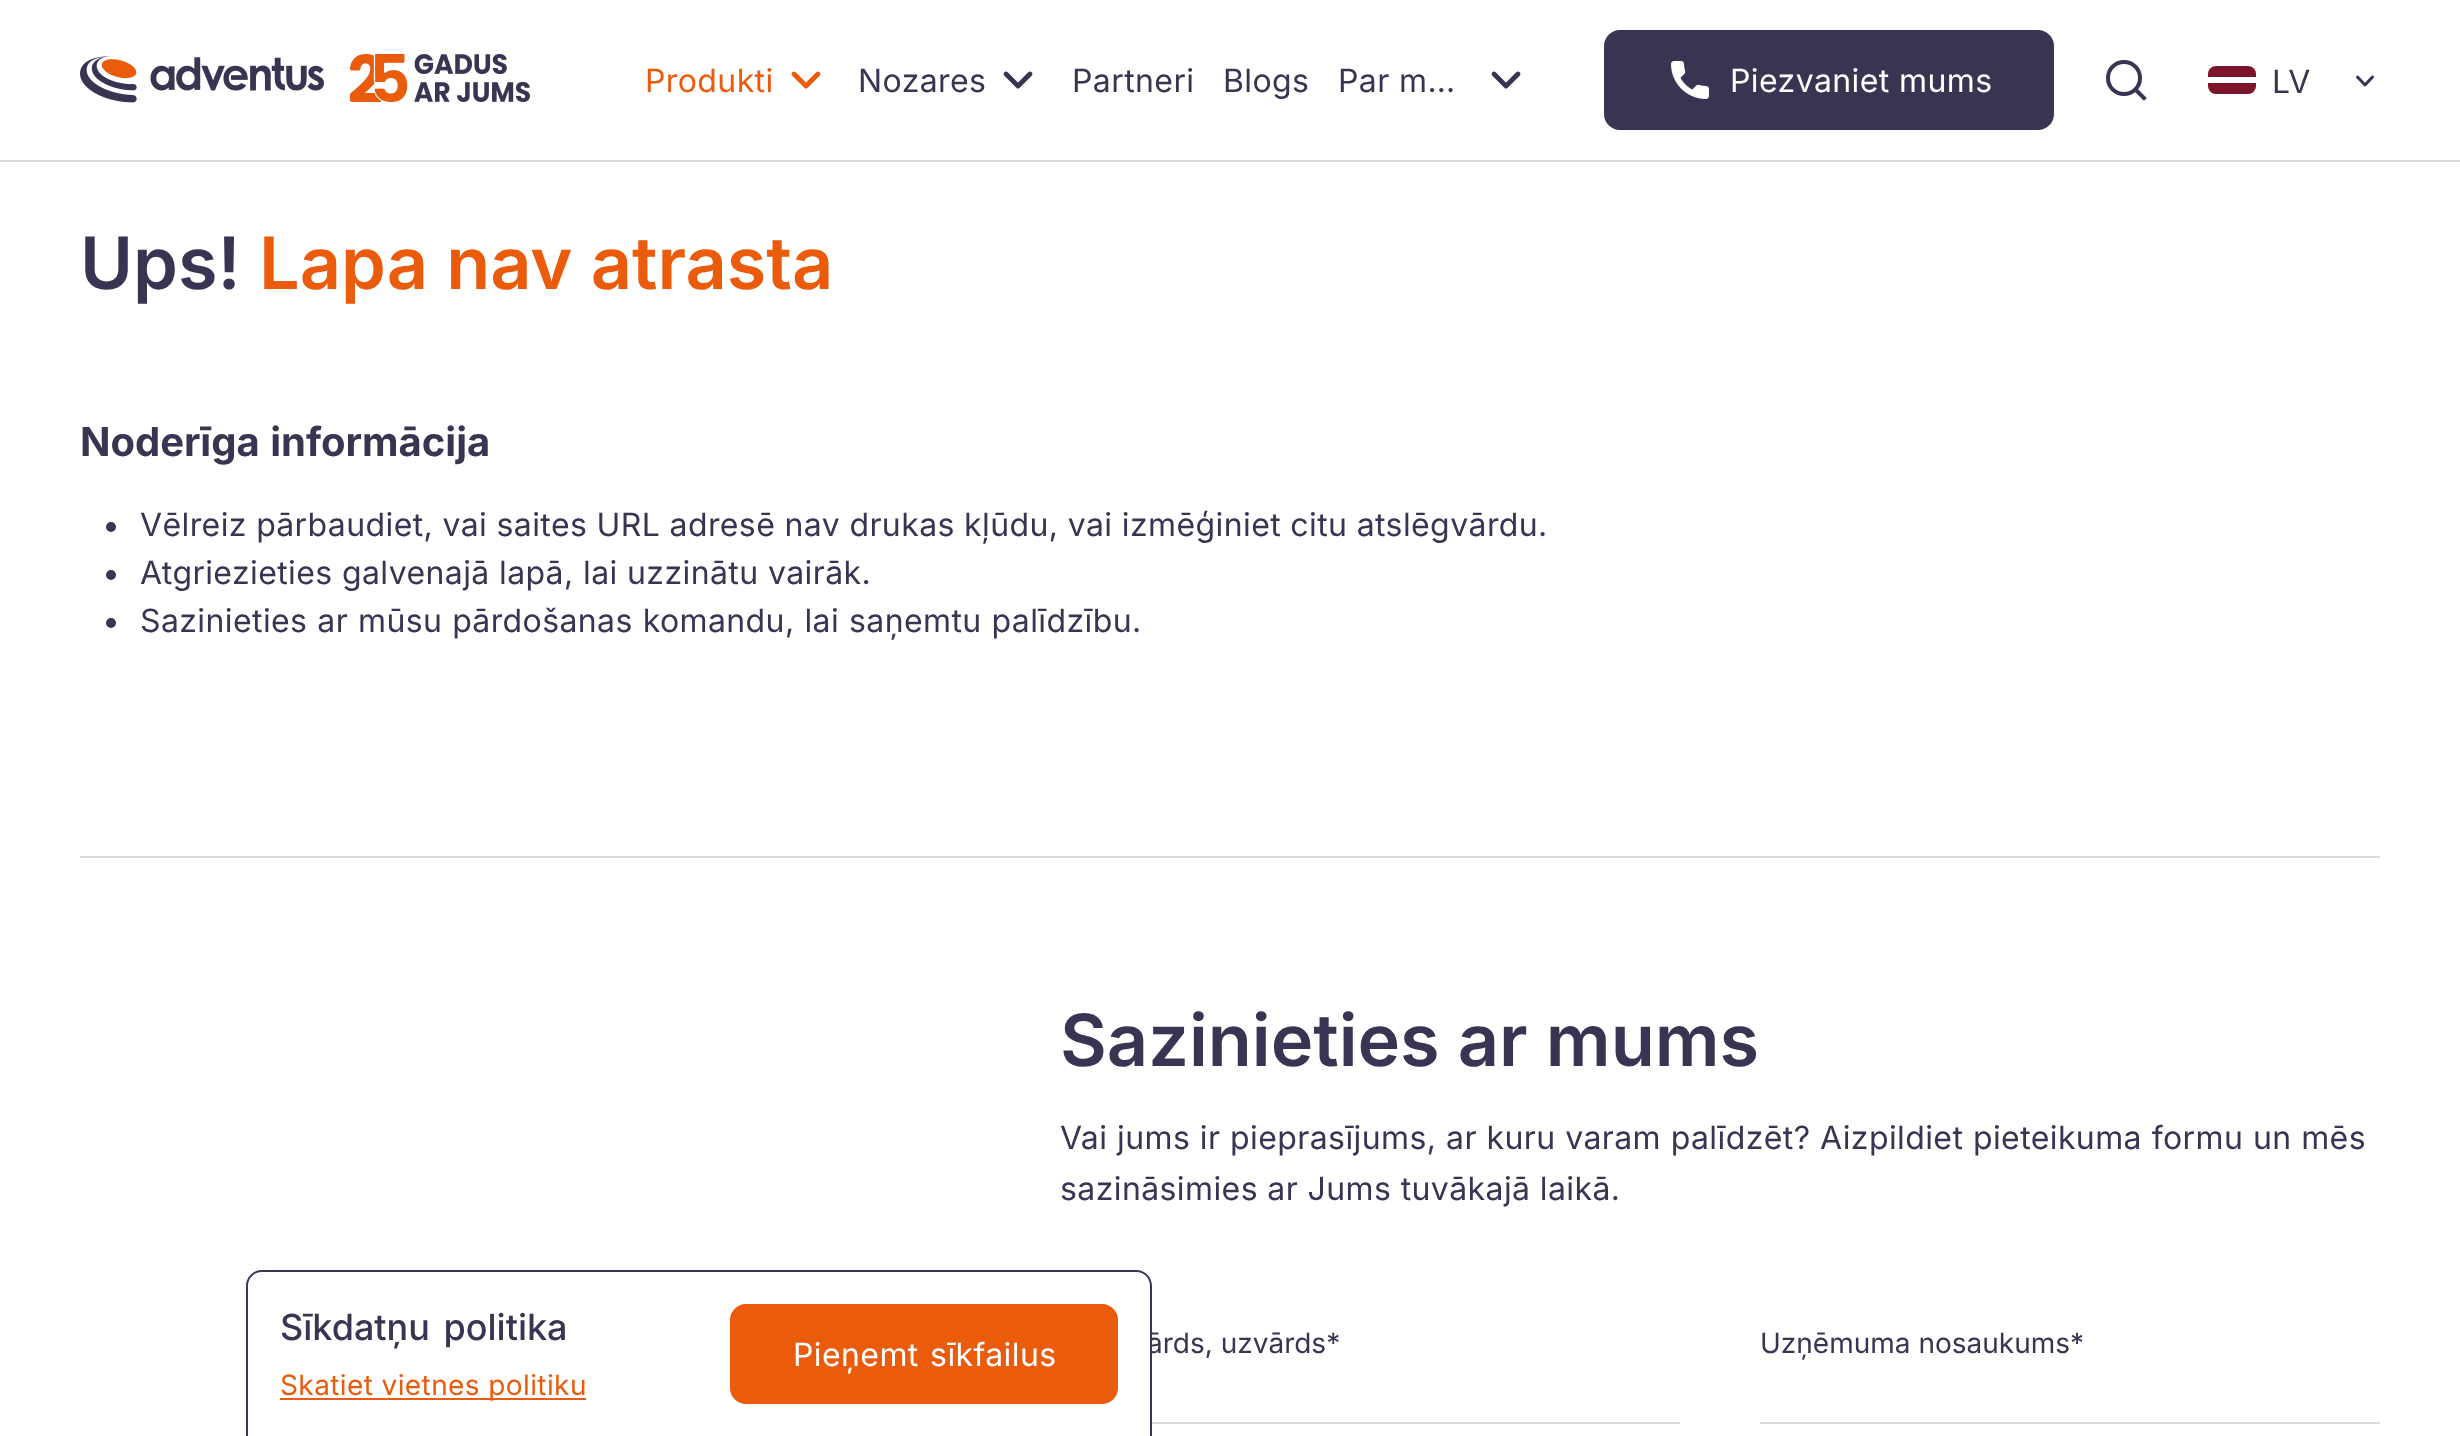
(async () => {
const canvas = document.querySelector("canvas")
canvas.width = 2460
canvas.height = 1436
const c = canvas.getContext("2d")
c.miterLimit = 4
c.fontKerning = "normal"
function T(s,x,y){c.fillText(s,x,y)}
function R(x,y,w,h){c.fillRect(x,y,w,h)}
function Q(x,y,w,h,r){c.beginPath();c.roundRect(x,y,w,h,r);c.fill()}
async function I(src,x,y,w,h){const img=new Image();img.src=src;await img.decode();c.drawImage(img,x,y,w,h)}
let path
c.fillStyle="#fff"
R(0,0,2460,1436)
c.fillStyle="#dadada"
R(0,160,2460,2)
await I("1.png",80,54,450,49)
c.letterSpacing="0.4px"
c.font="32px Inter"
c.fillStyle="#ea5b0c"
T("Produkti",645,92)
path = new Path2D("M794 74l12 12l12-12")
c.strokeStyle="#ea5b0c"
c.lineWidth=4.8
c.lineCap="round"
c.lineJoin="round"
c.stroke(path)
c.fillStyle="#393452"
T("Nozares",858,92)
path = new Path2D("M1006 74l12 12l12-12")
c.strokeStyle="#393452"
c.stroke(path)
T("Partneri",1072,92)
T("Blogs",1223,92)
T("Par m…",1338,92)
path = new Path2D("M1494 74l12 12l12-12")
c.stroke(path)
c.beginPath()
c.roundRect(1605,31,448,98,15)
c.fill()
c.lineWidth=2
c.lineJoin="miter"
c.stroke()
await I("2.png",1671,61,38,38)
c.fillStyle="#fff"
T("Piezvaniet mums",1730,92)
path = new Path2D("M2124 94c9 0 16-7 16-16c0-9-7-16-16-16c-9 0-16 7-16 16c0 9 7 16 16 16z")
c.lineWidth=4
c.lineJoin="round"
c.stroke(path)
path = new Path2D("M2144 98l-8.5-8.5")
c.lineCap="square"
c.stroke(path)
c.fillStyle="#7c142b"
Q(2208,66,48,28,8)
c.fillStyle="#fff"
R(2208,77,48,6)
c.fillStyle="#393452"
T("LV",2272,93)
path = new Path2D("M2357.5 77l7.5 8l7.5-8")
c.lineWidth=3
c.lineCap="round"
c.stroke(path)
c.letterSpacing="0px"
c.font="600 72px Inter"
T("Ups!",80,289)
c.fillStyle="#ea5b0c"
T("Lapa nav atrasta",259,289)
c.wordSpacing="1px"
c.font="bold 40px Inter"
c.fillStyle="#393452"
T("Noderīga informācija",80,456)
c.beginPath()
c.arc(111,527,5,0,7)
c.fill()
c.letterSpacing="0.4px"
c.wordSpacing="-0.1px"
c.font="32px Inter"
T("Vēlreiz pārbaudiet, vai saites URL adresē nav drukas kļūdu, vai izmēģiniet citu atslēgvārdu.",140,536)
c.beginPath()
c.arc(111,575,5,0,7)
c.fill()
c.wordSpacing="0px"
T("Atgriezieties galvenajā lapā, lai uzzinātu vairāk.",140,584)
c.beginPath()
c.arc(111,623,5,0,7)
c.fill()
c.wordSpacing="0.5px"
T("Sazinieties ar mūsu pārdošanas komandu, lai saņemtu palīdzību.",140,632)
c.letterSpacing="0px"
c.wordSpacing="0px"
c.font="28px Inter"
T("ārds, uzvārds*",1147,1353)
c.fillStyle="#fff"
c.beginPath()
c.roundRect(246,1270,906,166,[16,16,0,0])
c.fill()
c.fillStyle="#393452"
path = new Path2D("M262 1270h874c9 0 16 7 16 16v150h-906v-150c0-9 7-16 16-16zm0 2h874c8 0 14 6 14 14v150h-902v-150c0-8 6-14 14-14z")
c.fill(path,"evenodd")
c.wordSpacing="4px"
c.font="500 36px Inter"
T("Sīkdatņu politika",280,1340)
c.fillStyle="#ea5b0c"
R(280,1398,306,2)
c.letterSpacing="0.4px"
c.wordSpacing="0px"
c.font="28px Inter"
T("Skatiet vietnes politiku",280,1395)
c.beginPath()
c.roundRect(731,1305,386,98,15)
c.fill()
c.strokeStyle="#ea5b0c"
c.lineWidth=2
c.lineJoin="miter"
c.stroke()
c.wordSpacing="2px"
c.font="32px Inter"
c.fillStyle="#fff"
T("Pieņemt sīkfailus",793,1366)
c.fillStyle="#dadada"
R(80,856,2300,2)
c.letterSpacing="0px"
c.wordSpacing="0px"
c.font="600 72px Inter"
c.fillStyle="#393452"
T("Sazinieties ar mums",1060,1066)
c.letterSpacing="0.4px"
c.wordSpacing="0.25px"
c.font="32px Inter"
T("Vai jums ir pieprasījums, ar kuru varam palīdzēt? Aizpildiet pieteikuma formu un mēs",1060,1149)
c.wordSpacing="0px"
T("sazināsimies ar Jums tuvākajā laikā.",1060,1200)
c.fillStyle="#dadada"
R(1152,1422,528,2)
c.letterSpacing="0px"
c.font="28px Inter"
c.fillStyle="#393452"
T("Uzņēmuma nosaukums*",1760,1353)
c.fillStyle="#dadada"
R(1760,1422,620,2)
})()
